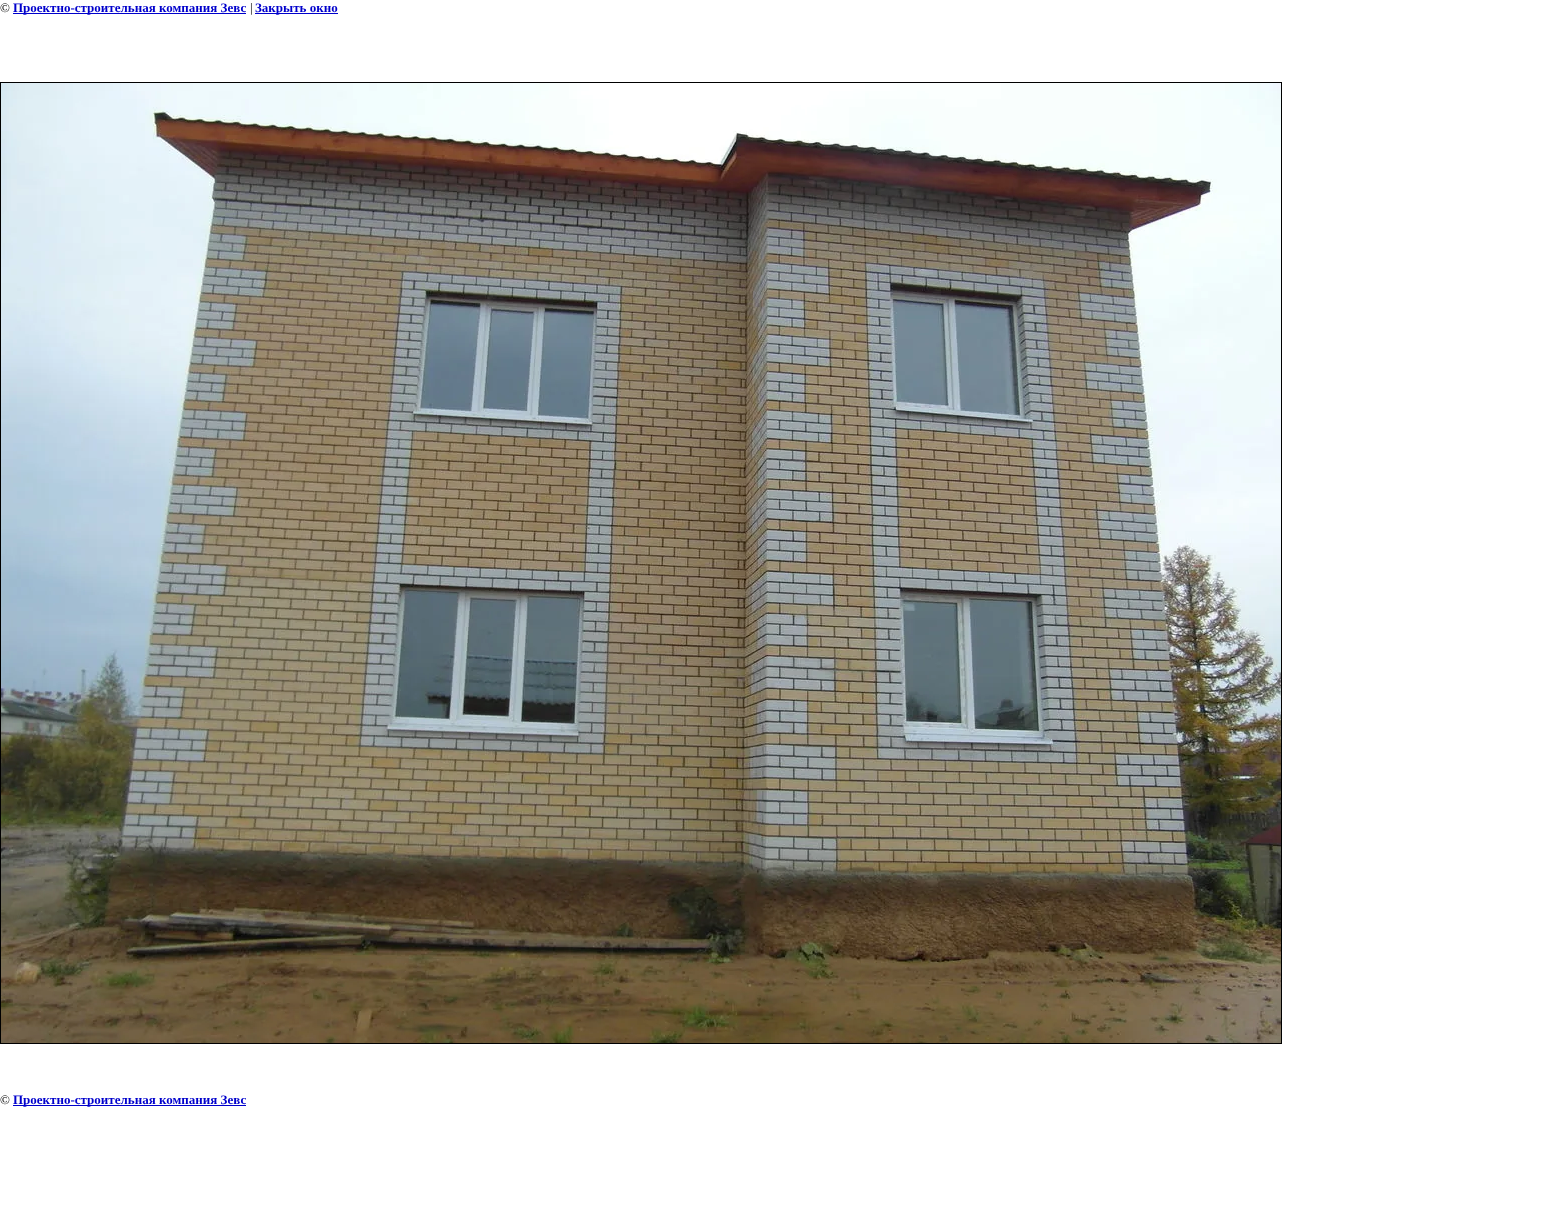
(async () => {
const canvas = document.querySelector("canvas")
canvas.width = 1556
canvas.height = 1223
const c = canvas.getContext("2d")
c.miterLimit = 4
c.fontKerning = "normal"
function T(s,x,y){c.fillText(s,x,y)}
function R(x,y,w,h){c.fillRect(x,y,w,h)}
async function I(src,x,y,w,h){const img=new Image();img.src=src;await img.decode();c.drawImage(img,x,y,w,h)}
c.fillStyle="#fff"
R(0,0,1556,1223)
c.font="13px Liberation Serif"
c.fillStyle="#000"
T("©",0,12)
c.fillStyle="#00c"
R(13,13,233,1)
c.font="bold 13px Liberation Serif"
T("Проектно-строительная компания Зевс",13,12)
c.font="13px Liberation Serif"
c.fillStyle="#000"
T("|",250,12)
c.fillStyle="#00c"
R(255,13,83,1)
c.font="bold 13px Liberation Serif"
T("Закрыть окно",255,12)
c.strokeStyle="#000"
c.strokeRect(.5,82.5,1281,961)
await I("1.png",1,83,1280,960)
c.font="13px Liberation Serif"
c.fillStyle="#000"
T("©",0,1104)
c.fillStyle="#00c"
R(13,1105,233,1)
c.font="bold 13px Liberation Serif"
T("Проектно-строительная компания Зевс",13,1104)
})()
